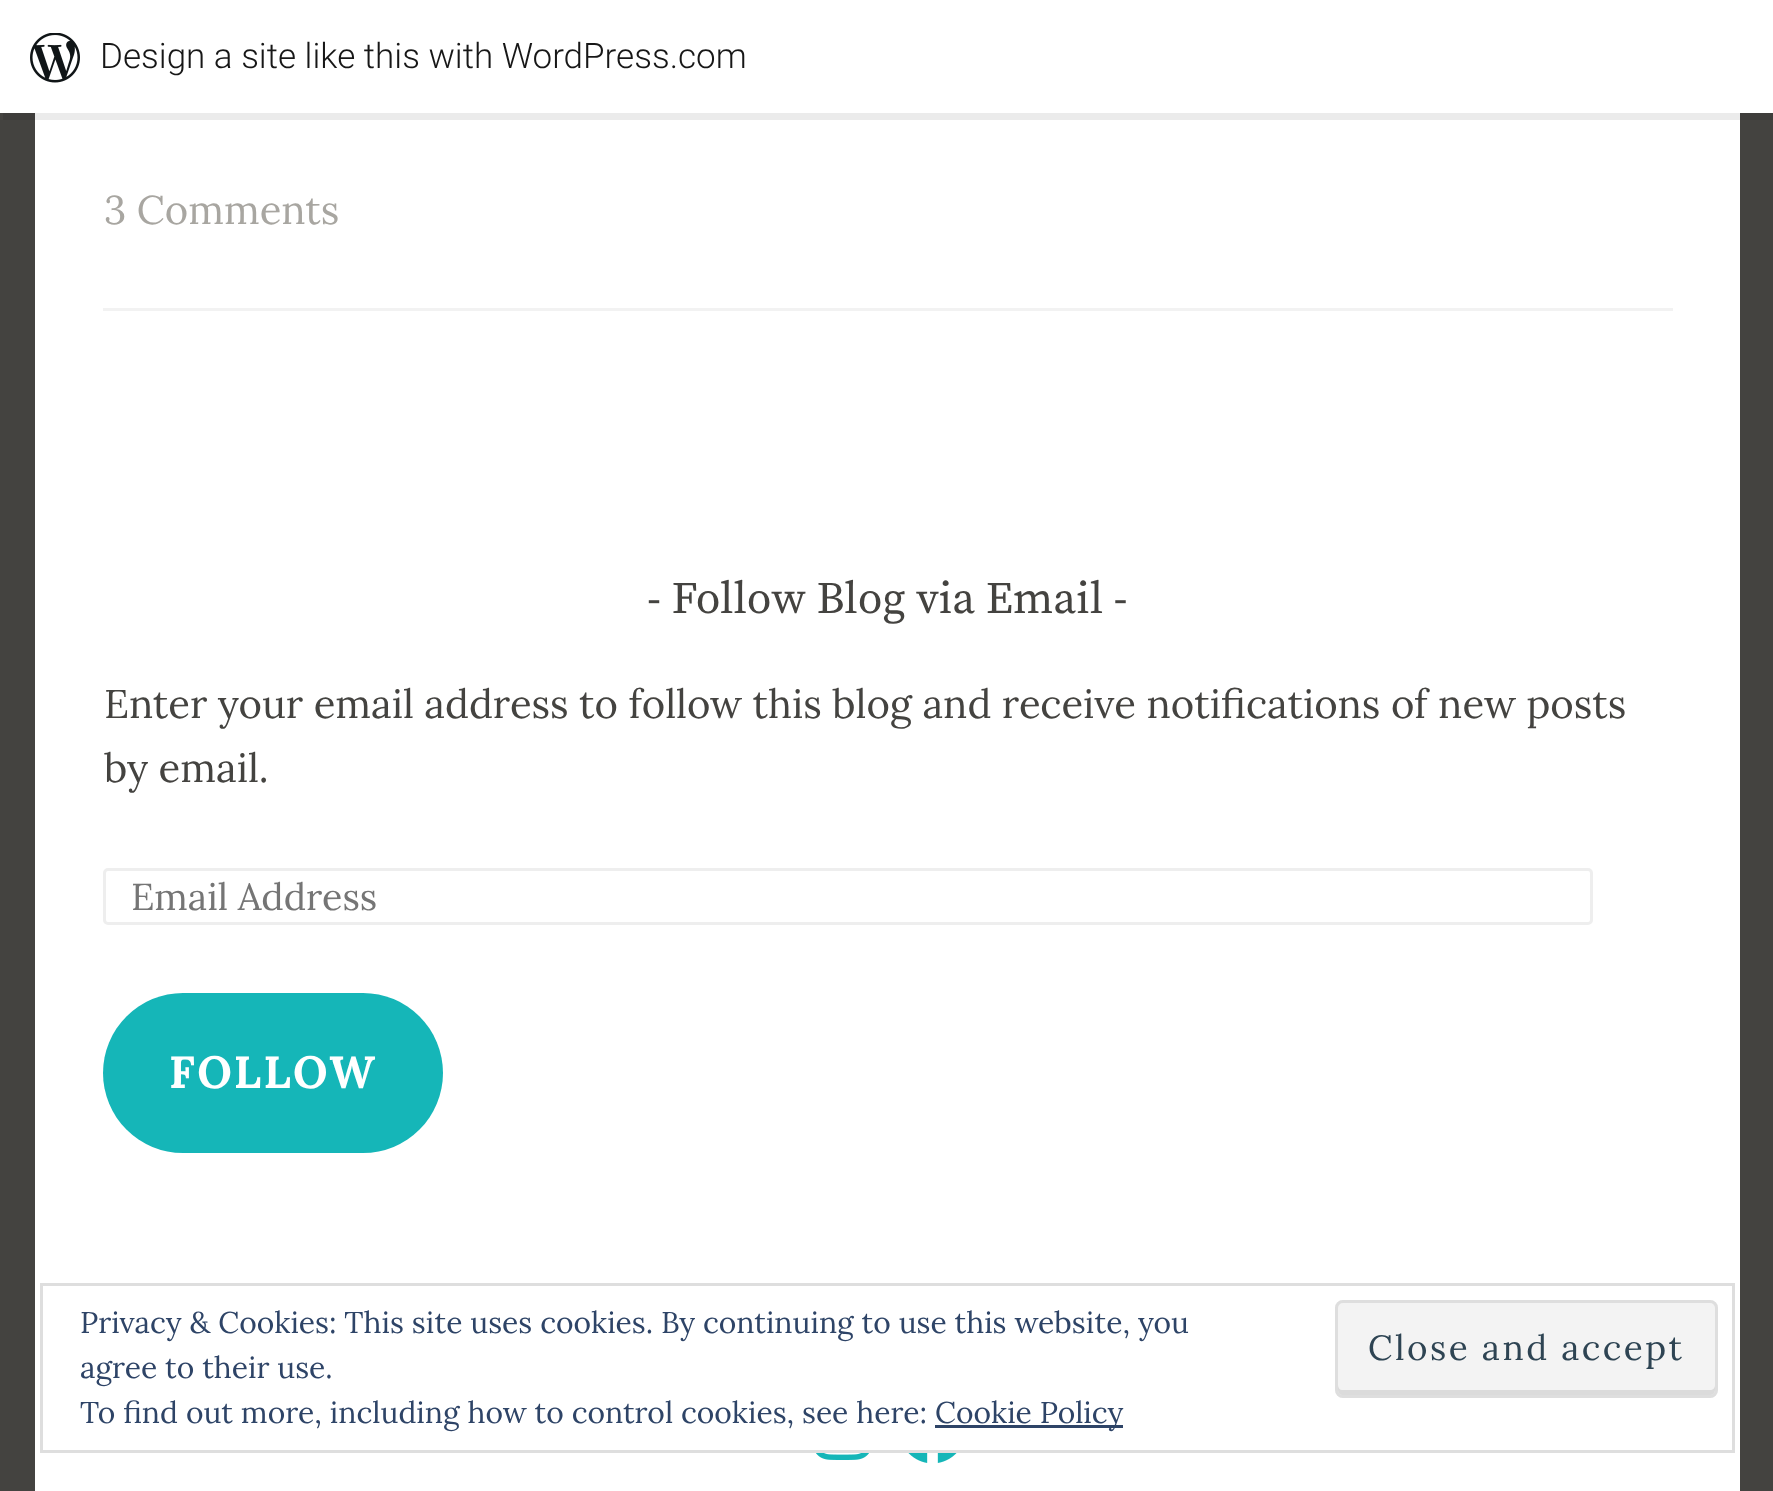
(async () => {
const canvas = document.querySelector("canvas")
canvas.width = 1773
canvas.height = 1491
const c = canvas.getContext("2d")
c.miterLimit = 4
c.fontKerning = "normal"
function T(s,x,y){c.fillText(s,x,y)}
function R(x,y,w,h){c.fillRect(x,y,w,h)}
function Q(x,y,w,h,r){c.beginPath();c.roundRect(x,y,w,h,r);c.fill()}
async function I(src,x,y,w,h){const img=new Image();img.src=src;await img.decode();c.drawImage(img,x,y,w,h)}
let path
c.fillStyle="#444340"
R(0,0,1773,1491)
c.fillStyle="#fff"
R(35,113,1705,1378)
c.fillStyle="#00000014"
path = new Path2D("M3 112v8h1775v-112h-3v104z")
c.fill(path)
c.fillStyle="#fff"
R(0,0,1773,113)
await I("1.png",30,33,50,50)
c.font="300 35px Roboto"
c.fillStyle="#171717"
T("Design a site like this with WordPress.com",100,68)
c.font="40px Lora"
c.fillStyle="#a8a6a1"
T("3 Comments",104,224)
c.fillStyle="#f2f2f2"
R(103,308,1570,3)
c.font="45px Source Serif Pro"
c.fillStyle="#444340"
T("- Follow Blog via Email -",647,613)
c.font="40px Lora"
T("Enter your email address to follow this blog and receive notifications of new posts",104,718)
T("by email.",104,782)
c.beginPath()
c.roundRect(104.5,869.5,1487,54,3.5)
c.strokeStyle="#eee"
c.lineWidth=3
c.stroke()
c.font="37.5px Lora"
c.fillStyle="#757575"
T("Email Address",131,910)
c.fillStyle="#15b6b8"
Q(103,993,340,160,80)
c.letterSpacing="2.5px"
c.font="bold 45px Lora"
c.fillStyle="#fff"
T("FOLLOW",169,1088)
await I("2.png",816,1453,53,7)
await I("3.png",908,1453,49,10)
c.strokeStyle="#dedede"
c.strokeRect(41.5,1284.5,1692,167)
c.letterSpacing="0px"
c.font="30px Lora"
c.fillStyle="#2e4467"
T("Privacy & Cookies: This site uses cookies. By continuing to use this website, you",80,1333)
T("agree to their use.",80,1378)
c.fillStyle="#f3f3f3"
Q(1335,1300,383,98,8)
c.fillStyle="#dbdbdb"
path = new Path2D("M1338 1385v5c0 3 2 5 5 5h367c3 0 5-2 5-5v-5c0 3-2 5-5 5h-368c-2 0-4-2-4-5z")
c.fill(path)
c.beginPath()
c.roundRect(1336.5,1301.5,380,95,6.5)
c.stroke()
c.letterSpacing="2.5px"
c.font="35px Lora"
c.fillStyle="#2e4453"
T("Close and accept",1368,1360)
c.letterSpacing="0px"
c.font="30px Lora"
c.fillStyle="#2e4467"
T("To find out more, including how to control cookies, see here:",80,1423)
R(935,1425,188,3)
T("Cookie Policy",935,1423)
})()
